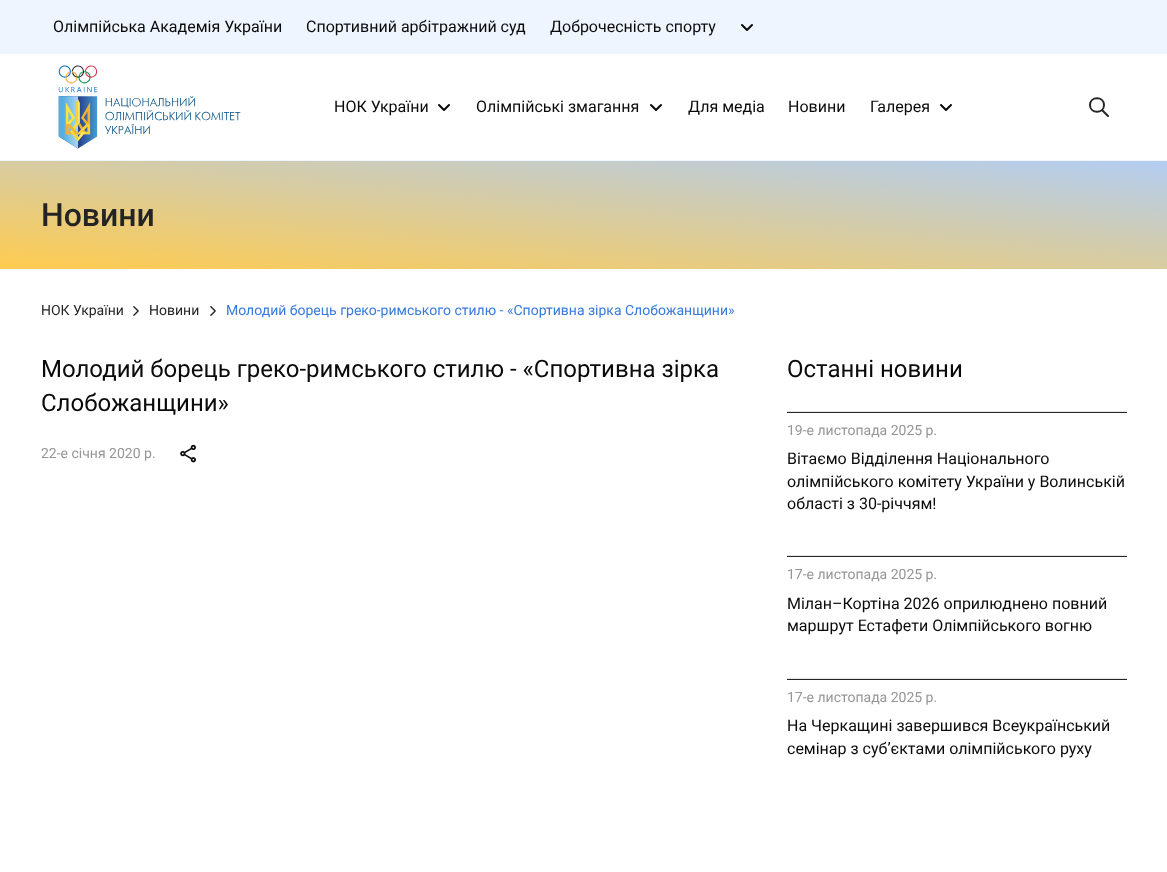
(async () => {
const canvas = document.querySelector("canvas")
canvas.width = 1167
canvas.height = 872
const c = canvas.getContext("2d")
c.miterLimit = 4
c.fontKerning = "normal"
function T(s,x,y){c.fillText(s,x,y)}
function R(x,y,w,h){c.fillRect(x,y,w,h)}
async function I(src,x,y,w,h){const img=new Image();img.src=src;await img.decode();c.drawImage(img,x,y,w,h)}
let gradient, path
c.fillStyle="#fff"
R(0,0,1167,872)
c.fillStyle="#eef5ff"
R(0,0,1167,54)
c.font="16px Roboto"
c.fillStyle="#0a0a0a"
T("Олімпійська Академія України",53,32)
T("Спортивний арбітражний суд",306,32)
T("Доброчесність спорту",550,32)
path = new Path2D("M742 25l5 5l5-5")
c.strokeStyle="#0a0a0a"
c.lineWidth=2
c.lineCap="round"
c.lineJoin="round"
c.stroke(path)
c.fillStyle="#eef5ff"
R(0,160,1167,1)
await I("1.png",58,65,183,84)
c.fillStyle="#0a0a0a"
T("НОК України",334,112)
path = new Path2D("M439 105l5 5l5-5")
c.stroke(path)
T("Олімпійські змагання",476,112)
path = new Path2D("M651 105l5 5l5-5")
c.stroke(path)
T("Для медіа",688,112)
T("Новини",788,112)
T("Галерея",870,112)
path = new Path2D("M941 105l5 5l5-5")
c.stroke(path)
path = new Path2D("M1108 116l-6-6m-12-5c0 9 14 9 14 0c0-9-14-9-14 0z")
c.strokeStyle="#242424"
c.stroke(path)
gradient = c.createLinearGradient(574,322,593,108)
gradient.addColorStop(0,"#ffcb4d")
gradient.addColorStop(1,"#b2cdf3")
c.fillStyle = gradient
R(0,161,1167,108)
c.font="500 32px Roboto"
c.fillStyle="#242424"
T("Новини",41,226)
c.font="14px Roboto"
T("НОК України",41,315)
await I("2.png",133,306,6,10)
T("Новини",149,315)
await I("2.png",210,306,6,10)
c.fillStyle="#367adc"
T("Молодий борець греко-римського стилю - «Спортивна зірка Слобожанщини»",226,315)
c.font="24px Roboto"
c.fillStyle="#0a0a0a"
T("Молодий борець греко-римського стилю - «Спортивна зірка",41,377)
T("Слобожанщини»",41,411)
c.font="14px Roboto"
c.fillStyle="#969696"
T("22-е січня 2020 р.",41,458)
await I("3.png",180,444,16,19)
c.font="24px Roboto"
c.fillStyle="#0a0a0a"
T("Останні новини",787,377)
c.fillStyle="#242424"
R(787,412,340,1)
c.fillStyle="#e5e5e5"
R(787,411,340,1)
c.font="14px Roboto"
c.fillStyle="#969696"
T("19-е листопада 2025 р.",787,435)
c.font="16px Roboto"
c.fillStyle="#0a0a0a"
T("Вітаємо Відділення Національного",787,464)
T("олімпійського комітету України у Волинській",787,487)
T("області з 30-річчям!",787,509)
c.fillStyle="#242424"
R(787,556,340,1)
c.fillStyle="#e5e5e5"
R(787,555,340,1)
c.font="14px Roboto"
c.fillStyle="#969696"
T("17-е листопада 2025 р.",787,579)
c.font="16px Roboto"
c.fillStyle="#0a0a0a"
T("Мілан–Кортіна 2026 оприлюднено повний",787,609)
T("маршрут Естафети Олімпійського вогню",787,631)
c.fillStyle="#242424"
R(787,679,340,1)
c.fillStyle="#e5e5e5"
R(787,678,340,1)
c.font="14px Roboto"
c.fillStyle="#969696"
T("17-е листопада 2025 р.",787,702)
c.font="16px Roboto"
c.fillStyle="#0a0a0a"
T("На Черкащині завершився Всеукраїнський",787,731)
T("семінар з суб’єктами олімпійського руху",787,754)
})()
